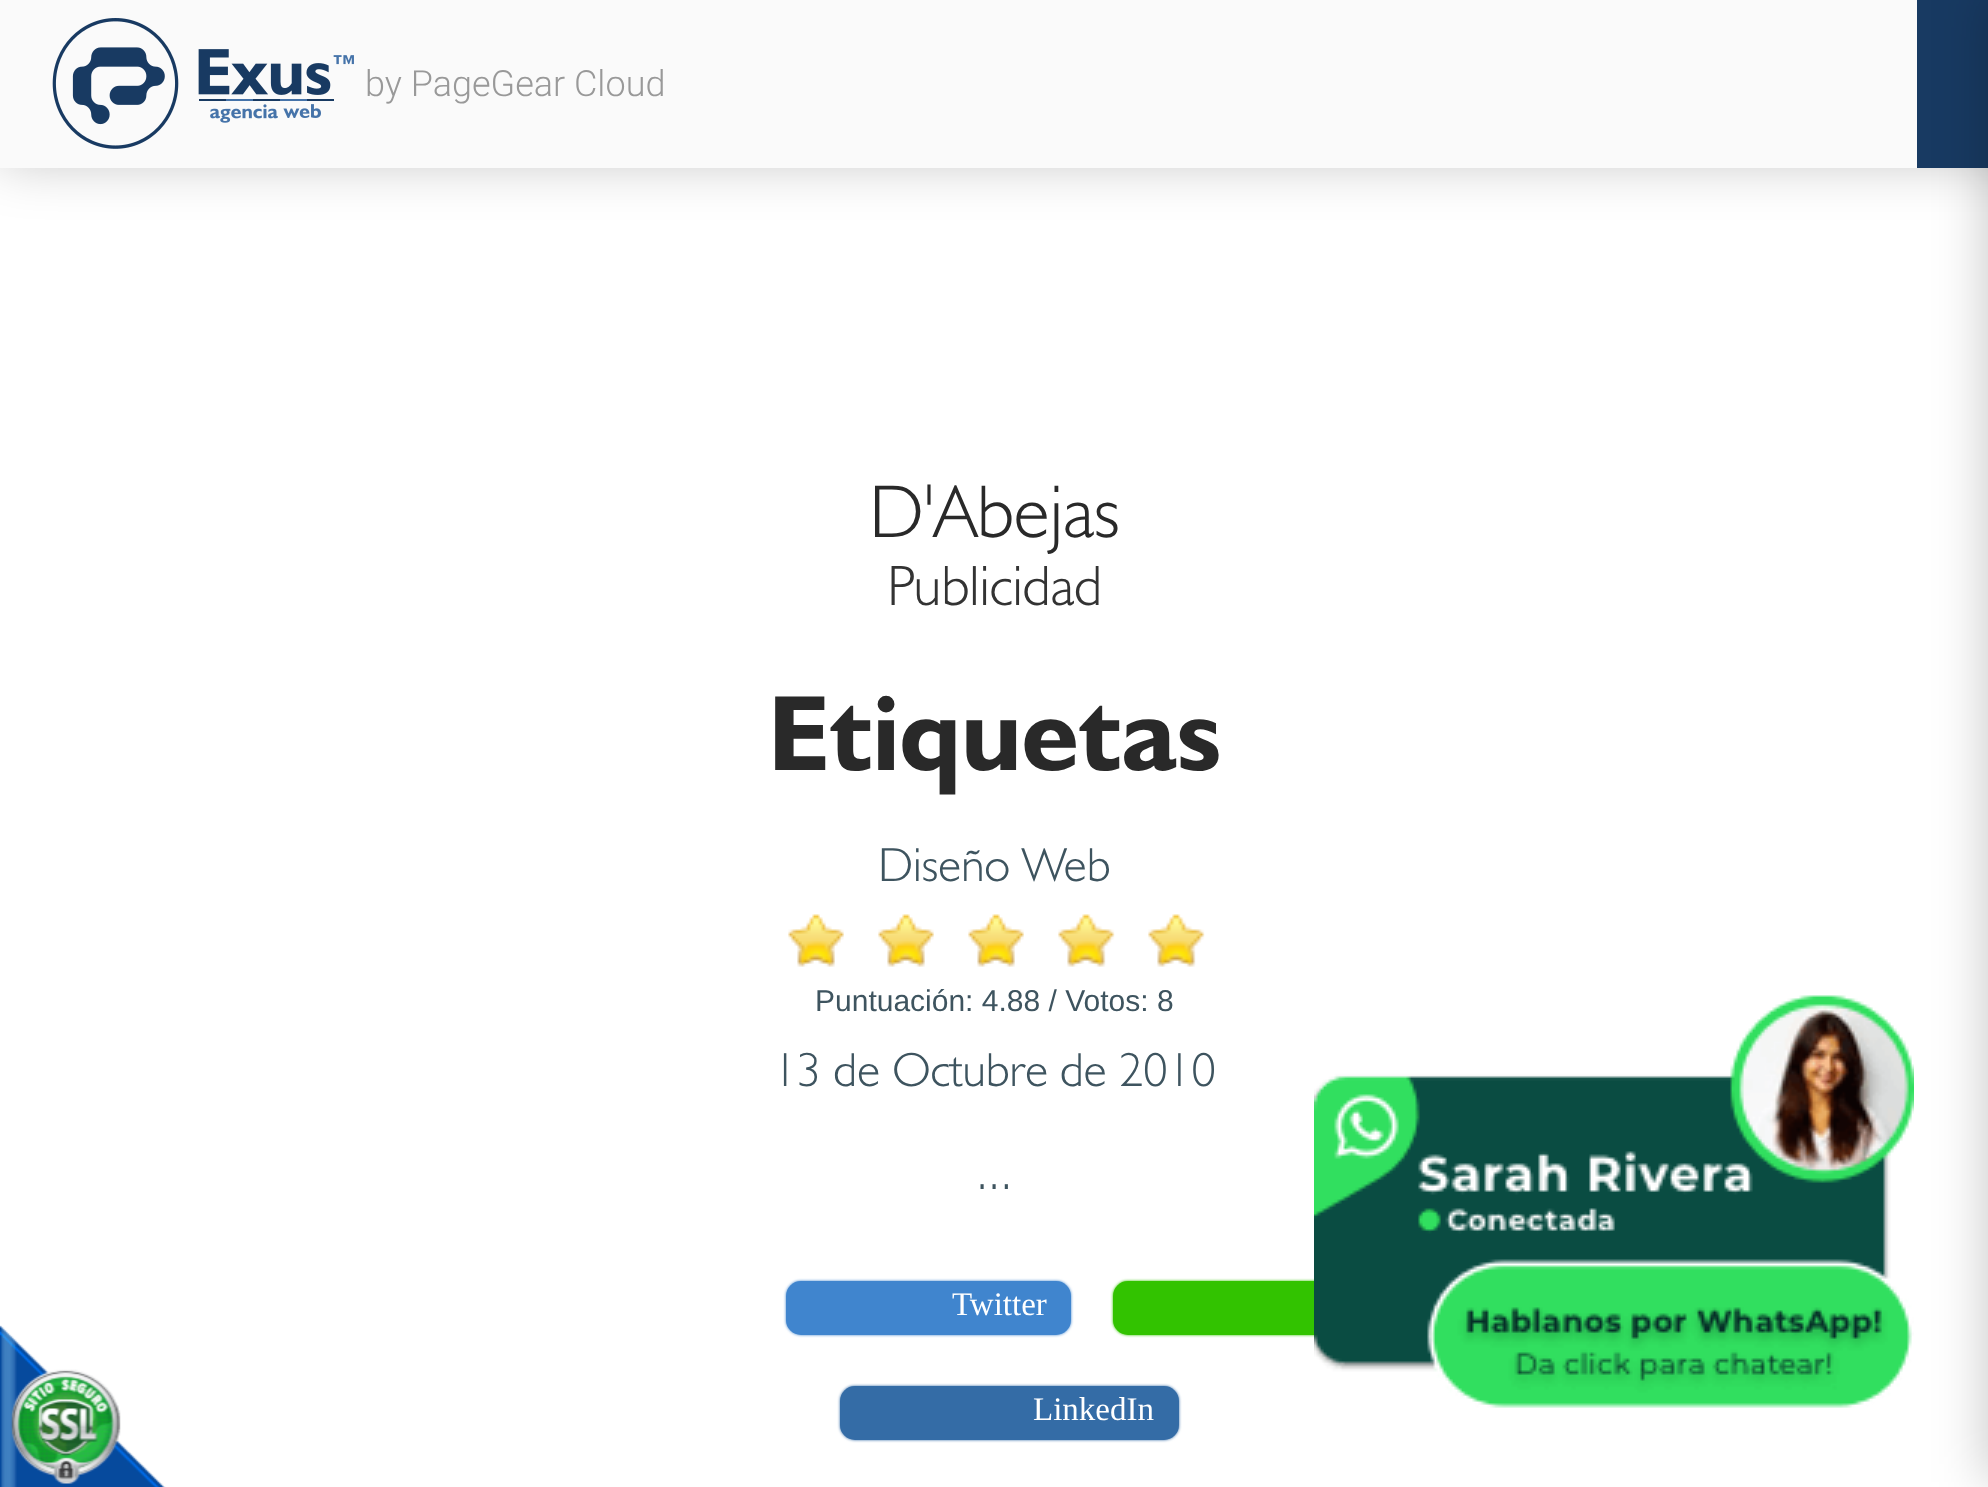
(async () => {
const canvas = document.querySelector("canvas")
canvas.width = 1988
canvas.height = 1487
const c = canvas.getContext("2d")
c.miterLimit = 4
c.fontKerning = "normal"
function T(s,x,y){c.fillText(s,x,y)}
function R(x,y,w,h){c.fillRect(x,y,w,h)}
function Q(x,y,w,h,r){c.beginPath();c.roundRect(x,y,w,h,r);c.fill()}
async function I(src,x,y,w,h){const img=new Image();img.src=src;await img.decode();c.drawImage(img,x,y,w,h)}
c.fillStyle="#fff"
R(0,0,1988,1487)
await I("1.png",0,1325,166,162)
c.fillStyle="#0000003d"
c.filter="blur(27px)"
c.beginPath()
c.rect(0,-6,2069,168)
c.fill()
c.filter="none"
c.fillStyle="#fafafa"
R(0,0,1917,168)
await I("2.png",52,18,302,131)
c.font="300 36px Roboto"
c.fillStyle="#999"
T("by PageGear Cloud",365,96)
c.fillStyle="#183a62"
R(1917,0,71,168)
c.fillStyle="#0000003d"
c.filter="blur(27px)"
c.beginPath()
c.rect(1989,-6,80,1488)
c.fill()
c.filter="none"
c.font="300 75px 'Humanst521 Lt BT'"
c.fillStyle="#292929"
T("D'Abejas",869,537)
c.font="300 57px 'Humanst521 Lt BT'"
c.fillStyle="#333"
T("Publicidad",887,605)
c.font="bold 107.5px 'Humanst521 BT'"
c.fillStyle="#292929"
T("Etiquetas",768,770)
c.font="300 48px 'Humanst521 Lt BT'"
c.fillStyle="#3e545f"
T("Diseño Web",878,881)
await I("3.png",788,914,56,53)
await I("3.png",878,914,56,53)
await I("3.png",968,914,56,53)
await I("4.png",1058,914,57,53)
await I("4.png",1148,914,57,53)
c.font="30px Liberation Sans"
T("Puntuación: 4.88 / Votos: 8",815,1011)
c.font="300 48px 'Humanst521 Lt BT'"
T("13 de Octubre de 2010",773,1086)
T("...",976,1189)
c.fillStyle="#4085ce"
c.filter="blur(1.5px)"
c.beginPath()
c.roundRect(786,1281,285,54,15)
c.fill()
c.filter="none"
Q(786,1281,285,54,15)
c.font="33px Liberation Serif"
c.fillStyle="#fff"
T("Twitter",952,1315)
c.fillStyle="#32c300"
c.filter="blur(1.5px)"
c.beginPath()
c.roundRect(1113,1281,357,54,15)
c.fill()
c.filter="none"
Q(1113,1281,357,54,15)
c.fillStyle="#346ca6"
c.filter="blur(1.5px)"
c.beginPath()
c.roundRect(840,1386,339,54,15)
c.fill()
c.filter="none"
Q(840,1386,339,54,15)
c.fillStyle="#fff"
T("LinkedIn",1033,1420)
await I("5.png",1314,995,600,413)
})()
